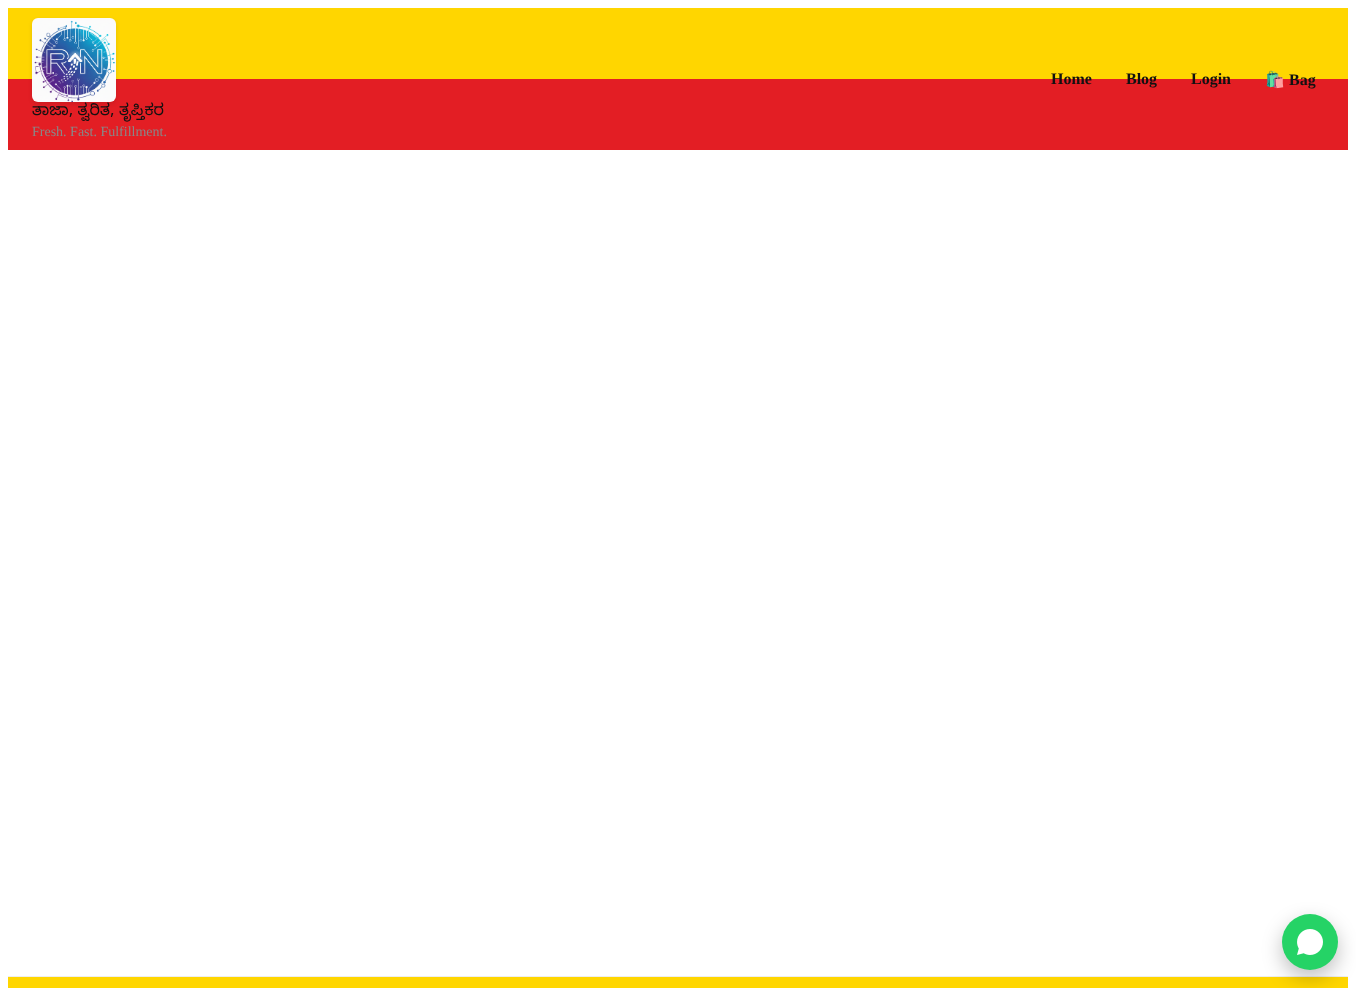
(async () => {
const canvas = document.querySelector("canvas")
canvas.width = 1356
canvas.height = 988
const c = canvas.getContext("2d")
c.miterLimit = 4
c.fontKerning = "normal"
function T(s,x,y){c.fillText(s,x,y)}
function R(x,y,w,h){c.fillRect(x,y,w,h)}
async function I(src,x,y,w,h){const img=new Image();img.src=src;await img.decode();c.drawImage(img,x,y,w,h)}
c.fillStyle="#fff"
R(0,0,1356,988)
c.fillStyle="#ffd600"
R(8,8,1340,71)
c.fillStyle="#e31e24"
R(8,79,1340,71)
c.font="bold 16px Liberation Serif"
c.fillStyle="#111"
T("Home",1051,84)
T("Blog",1126,84)
T("Login",1191,84)
c.font="bold 16px Noto Color Emoji"
T("🛍️",1265,85)
c.font="bold 16px Liberation Serif"
T("Bag",1289,85)
c.fillStyle="#0000001a"
c.filter="blur(2px)"
c.beginPath()
c.roundRect(32,20,84,84,6)
c.fill()
c.filter="none"
await I("1.png",32,18,84,84)
c.font="16px Noto Sans Kannada"
c.fillStyle="#111"
T("ತಾಜಾ, ತ್ವರಿತ, ತೃಪ್ತಿಕರ",32,115)
c.font="14px Liberation Serif"
c.fillStyle="#888"
T("Fresh. Fast. Fulfillment.",32,136)
c.fillStyle="#ffd600"
R(8,977,1340,11)
c.fillStyle="#eee"
R(8,976,1340,1)
c.fillStyle="#00000040"
c.filter="blur(10px)"
c.beginPath()
c.roundRect(1282,922,56,56,28)
c.fill()
c.filter="none"
c.fillStyle="#25d366"
c.beginPath()
c.arc(1310,942,28,0,7)
c.fill()
await I("2.png",1297,929,26,26)
})()
